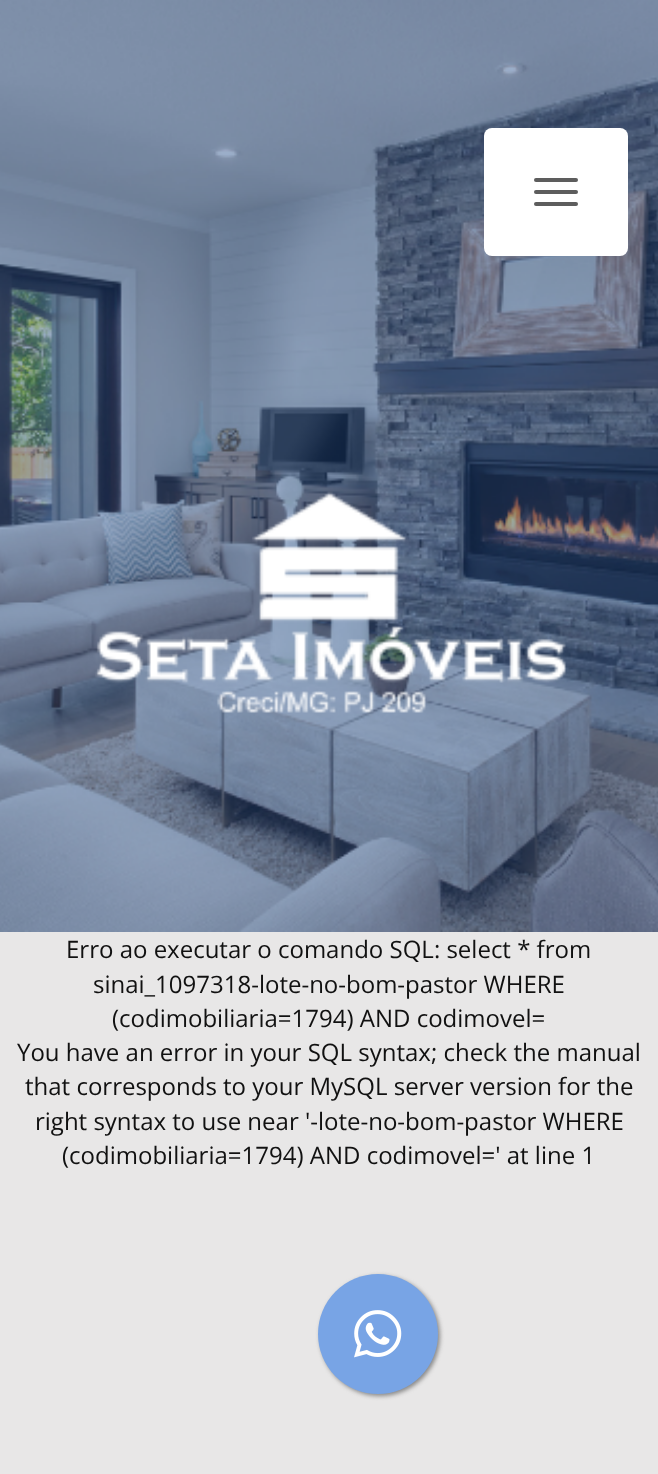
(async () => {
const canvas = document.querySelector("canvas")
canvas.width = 658
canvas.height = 1474
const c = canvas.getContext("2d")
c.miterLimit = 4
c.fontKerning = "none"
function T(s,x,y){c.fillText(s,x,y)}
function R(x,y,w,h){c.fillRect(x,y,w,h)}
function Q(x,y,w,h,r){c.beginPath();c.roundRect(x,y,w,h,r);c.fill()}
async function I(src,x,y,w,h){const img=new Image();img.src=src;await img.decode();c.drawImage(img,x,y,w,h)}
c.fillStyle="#e8e7e7"
R(0,0,658,1474)
await I("1.png",0,0,658,932)
c.fillStyle="#fff"
Q(484,128,144,128,8)
c.fillStyle="#5d5d5d"
Q(534,178,44,4,2)
Q(534,190,44,4,2)
Q(534,202,44,4,2)
await I("2.png",95,491,471,222)
c.font="24px Open Sans"
c.fillStyle="#111"
T("Erro ao executar o comando SQL: select * from",66,958)
T("sinai_1097318-lote-no-bom-pastor WHERE",93,993)
T("(codimobiliaria=1794) AND codimovel=",112,1027)
T("You have an error in your SQL syntax; check the manual",17,1061)
T("that corresponds to your MySQL server version for the",25,1095)
T("right syntax to use near '-lote-no-bom-pastor WHERE",35,1130)
T("(codimobiliaria=1794) AND codimovel=' at line 1",62,1164)
c.fillStyle="#888"
c.filter="blur(2px)"
c.beginPath()
c.roundRect(320,1276,120,120,60)
c.fill()
c.filter="none"
c.fillStyle="#78a4e5"
c.beginPath()
c.arc(378,1334,60,0,7)
c.fill()
await I("3.png",354,1310,48,48)
})()
